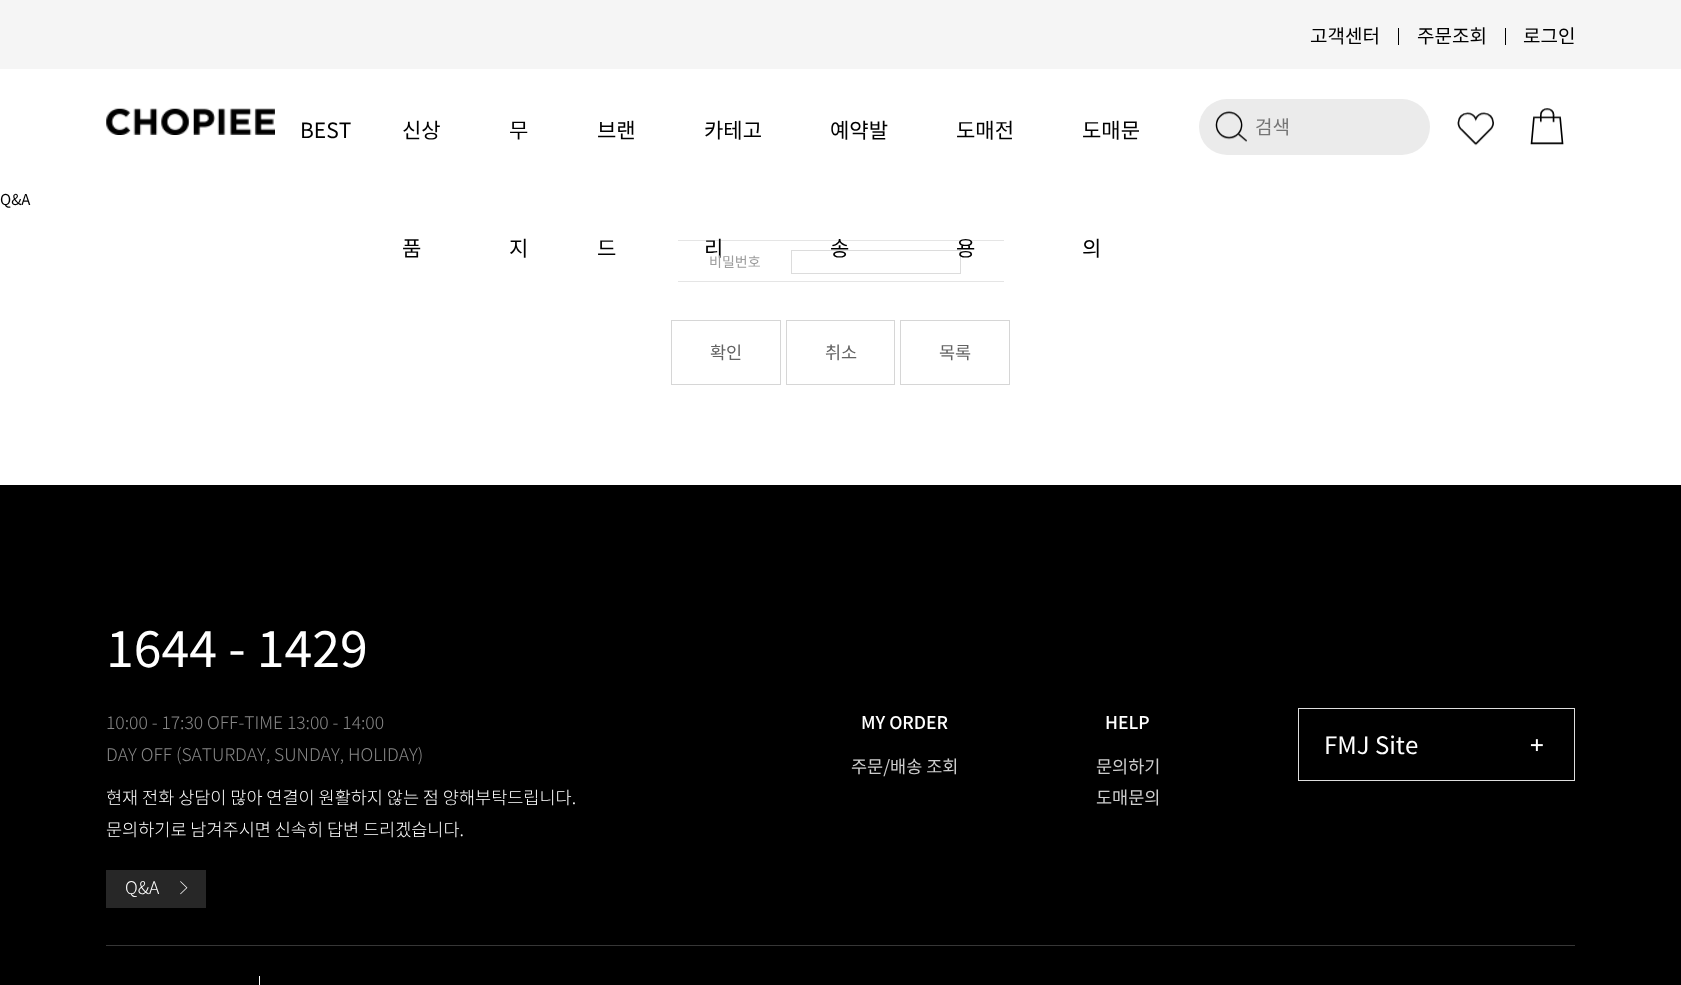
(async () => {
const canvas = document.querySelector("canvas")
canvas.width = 1681
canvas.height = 985
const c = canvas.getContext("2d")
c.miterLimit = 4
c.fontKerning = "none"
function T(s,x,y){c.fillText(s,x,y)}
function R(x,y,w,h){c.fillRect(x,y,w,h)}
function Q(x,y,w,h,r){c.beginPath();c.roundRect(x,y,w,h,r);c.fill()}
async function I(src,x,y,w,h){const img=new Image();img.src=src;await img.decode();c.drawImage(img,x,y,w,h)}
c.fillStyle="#fff"
R(0,0,1681,985)
c.fillStyle="#f5f5f5"
R(0,0,1681,69)
c.font="19px Noto Sans KR"
c.fillStyle="#000"
T("고객센터",1310,43)
R(1398,28,1,17)
T("주문조회",1417,43)
R(1505,28,1,17)
T("로그인",1523,43)
await I("1.png",106,108,169,27)
c.font="21px Noto Sans KR"
T("BEST",300,138)
T("신상",402,138)
T("품",402,256)
T("무",509,138)
T("지",509,256)
T("브랜",597,138)
T("드",597,256)
T("카테고",704,138)
c.fillStyle="#e5e5e5"
R(678,240,326,1)
c.fillStyle="#000"
T("리",704,256)
T("예약발",830,138)
c.strokeStyle="#dcdcdc"
c.strokeRect(791.5,250.5,169,23)
T("송",830,256)
T("도매전",956,138)
T("용",956,256)
T("도매문",1082,138)
T("의",1082,256)
c.fillStyle="#ebebeb"
Q(1199,99,231,56,28)
await I("2.png",1215,111,32,31)
c.font="19px Noto Sans KR"
c.fillStyle="#757575"
T("검색",1255,134)
await I("3.png",1457,112,37,34)
await I("4.png",1530,108,34,37)
c.font="15px Noto Sans KR"
c.fillStyle="#000"
T("Q&A",0,205)
c.fillStyle="#e5e5e5"
R(678,281,326,1)
c.font="14px Noto Sans KR"
c.fillStyle="#9d9d9d"
T("비밀번호",709,267)
c.strokeStyle="#d6d6d6"
c.strokeRect(671.5,320.5,109,64)
c.font="17.5px Noto Sans KR"
c.fillStyle="#636363"
T("확인",710,359)
c.strokeRect(786.5,320.5,108,64)
T("취소",825,359)
c.strokeRect(900.5,320.5,109,64)
T("목록",939,359)
c.fillStyle="#000"
R(0,485,1681,500)
c.font="50px Noto Sans KR"
c.fillStyle="#fff"
T("1644 - 1429",106,667)
c.fillStyle="#363636"
R(106,945,1469,1)
c.font="300 17.5px Noto Sans KR"
c.fillStyle="#868686"
T("10:00 - 17:30 OFF-TIME 13:00 - 14:00",106,729)
T("DAY OFF (SATURDAY, SUNDAY,",106,761)
T("HOLIDAY)",348,761)
c.fillStyle="#fff"
T("현재 전화 상담이 많아 연결이 원활하지 않는 점 양해부탁드립니다.",106,804)
T("문의하기로 남겨주시면 신속히 답변 드리겠습니다.",106,836)
c.fillStyle="#272727"
R(106,870,100,38)
c.fillStyle="#fff"
T("Q&A",125,894)
await I("5.png",180,881,8,14)
c.font="500 17.5px Noto Sans KR"
T("MY ORDER",861,729)
c.font="17.5px Noto Sans KR"
c.fillStyle="#cdcdcd"
T("주문/배송 조회",851,773)
c.font="500 17.5px Noto Sans KR"
c.fillStyle="#fff"
T("HELP",1105,729)
c.font="17.5px Noto Sans KR"
c.fillStyle="#cdcdcd"
T("문의하기",1096,773)
T("도매문의",1096,804)
c.strokeStyle="#dedede"
c.strokeRect(1298.5,708.5,276,72)
c.font="24px Noto Sans KR"
c.fillStyle="#fff"
T("FMJ Site",1324,754)
await I("6.png",1530,739,13,13)
R(259,976,1,9)
})()
